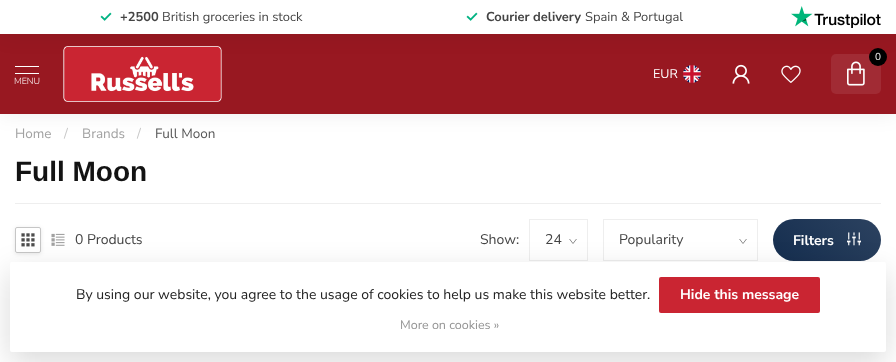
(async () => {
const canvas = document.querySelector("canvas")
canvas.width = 896
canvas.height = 362
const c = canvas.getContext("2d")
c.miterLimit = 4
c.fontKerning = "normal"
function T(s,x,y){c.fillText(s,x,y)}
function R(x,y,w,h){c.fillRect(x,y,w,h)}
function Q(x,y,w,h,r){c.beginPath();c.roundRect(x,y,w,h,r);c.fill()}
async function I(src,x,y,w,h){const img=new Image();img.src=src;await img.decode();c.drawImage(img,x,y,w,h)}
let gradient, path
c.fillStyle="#fff"
R(0,0,896,362)
c.fillStyle="#00000012"
c.filter="blur(10px)"
c.beginPath()
c.rect(0,0,896,114)
c.fill()
c.filter="none"
c.fillStyle="#981821"
R(0,34,896,80)
c.fillStyle="#00000014"
c.filter="blur(11px)"
c.beginPath()
c.rect(0,0,896,34)
c.fill()
c.filter="none"
c.fillStyle="#fff"
R(0,0,896,34)
await I("1.png",100,12,12,9)
c.font="bold 12.9px Nunito Sans"
c.fillStyle="#444"
T("+2500",120,21)
c.font="12.9px Nunito Sans"
T("British groceries in stock",162,21)
await I("1.png",466,12,12,9)
c.font="bold 12.9px Nunito Sans"
T("Courier delivery",486,21)
c.font="12.9px Nunito Sans"
T("Spain & Portugal",585,21)
await I("2.png",791,6,90,22)
c.fillStyle="#a12b34"
Q(831,54,50,40,5)
c.fillStyle="#000"
c.beginPath()
c.arc(878,57,9,0,7)
c.fill()
c.font="10px Nunito Sans"
c.fillStyle="#fff"
T("0",875,60)
await I("3.png",847,61,18,25)
c.font="12.5px Nunito Sans"
T("EUR",653,78)
await I("4.png",683,65,18,18)
await I("5.png",732,64,18,20)
await I("6.png",781,65,20,18)
R(15,66,24,1)
R(15,73,24,1)
c.font="300 9px Nunito Sans"
T("MENU",14,84)
await I("7.png",63,46,159,56)
c.font="13.5px Nunito Sans"
c.fillStyle="#a2a2a2"
T("Home",15,138)
c.fillStyle="#c7c7c7"
T("/",64,138)
c.fillStyle="#a2a2a2"
T("Brands",82,138)
c.fillStyle="#c7c7c7"
T("/",137,138)
c.fillStyle="#575757"
T("Full Moon",155,138)
c.font="bold 28px Arimo"
c.fillStyle="#131313"
T("Full Moon",15,181)
c.fillStyle="#eee"
R(15,203,866,1)
c.save()
path = new Path2D("M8 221h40v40h-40zm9 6h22c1 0 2 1 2 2v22c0 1-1 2-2 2h-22c-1 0-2-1-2-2v-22c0-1 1-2 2-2z")
c.clip(path,"evenodd")
c.fillStyle="#0000001a"
c.filter="blur(2px)"
c.beginPath()
c.roundRect(15,228,26,26,2)
c.fill()
c.filter="none"
c.restore()
c.beginPath()
c.roundRect(15.5,227.5,25,25,1.5)
c.strokeStyle="#c6c6c6"
c.stroke()
await I("8.png",21,233,14,14)
await I("9.png",51,233,14,13)
c.font="14px Nunito Sans"
c.fillStyle="#444"
T("0 Products",75,244)
T("Show:",480,244)
path = new Path2D("M576.5 239l-3.5 4.5l-3.5-4.5")
c.strokeStyle="#595959"
c.lineWidth=0.7
c.stroke(path)
c.strokeStyle="#eee"
c.lineWidth=1
c.strokeRect(529.5,219.5,58,41)
T("24",545,244)
path = new Path2D("M746.5 239l-3.5 4.5l-3.5-4.5")
c.strokeStyle="#595959"
c.lineWidth=0.7
c.stroke(path)
c.strokeStyle="#eee"
c.lineWidth=1
c.strokeRect(603.5,219.5,154,41)
T("Popularity",619,244)
gradient = c.createLinearGradient(790,278,865,203)
gradient.addColorStop(0,"#152e4f")
gradient.addColorStop(1,"#2c4260")
c.fillStyle = gradient
Q(773,219,108,42,21)
c.font="bold 14px Nunito Sans"
c.fillStyle="#fff"
T("Filters",793,245)
await I("10.png",847,232,14,14)
c.fillStyle="#00000026"
c.filter="blur(15px)"
c.beginPath()
c.roundRect(10,272,876,90,2)
c.fill()
c.filter="none"
c.fillStyle="#fff"
Q(10,262,876,90,2)
c.font="14px Nunito Sans"
c.fillStyle="#222"
T("By using our website, you agree to the usage of cookies to help us make this website better.",76,299)
c.fillStyle="#ca2532"
Q(659,277,161,36,2)
c.font="bold 14px Nunito Sans"
c.fillStyle="#fff"
T("Hide this message",680,299)
c.font="12.5px Nunito Sans"
c.fillStyle="#949494"
T("More on cookies »",400,329)
})()
